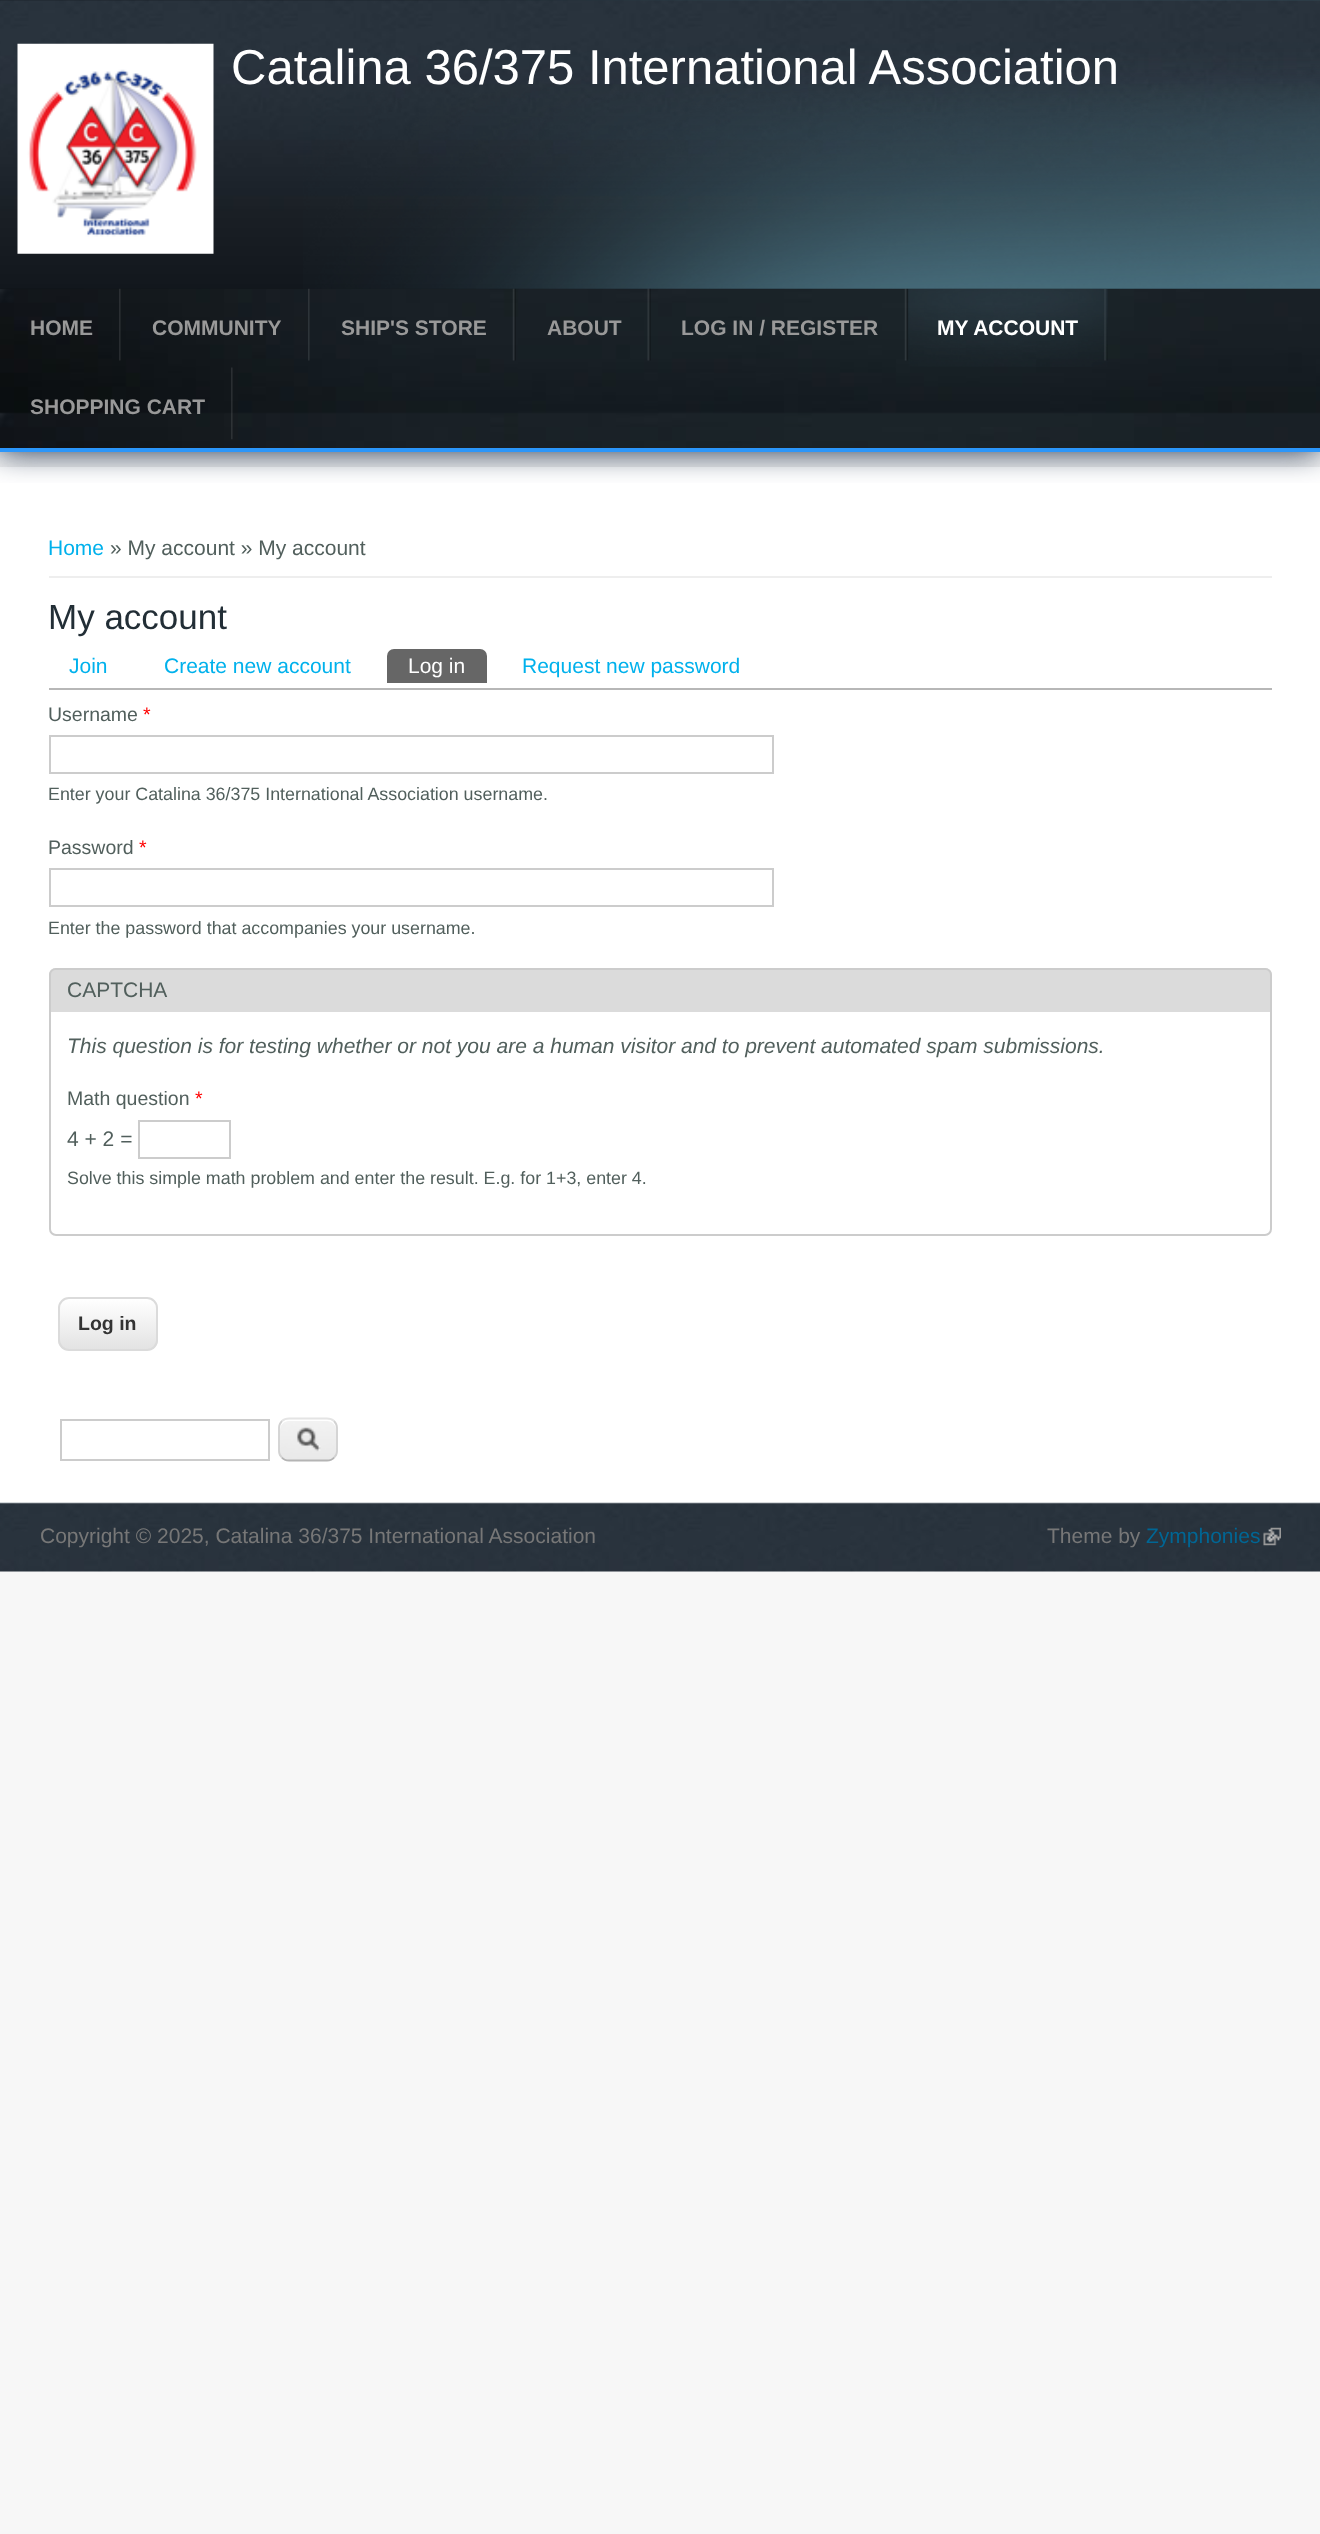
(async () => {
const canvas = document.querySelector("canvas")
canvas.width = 1320
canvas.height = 2534
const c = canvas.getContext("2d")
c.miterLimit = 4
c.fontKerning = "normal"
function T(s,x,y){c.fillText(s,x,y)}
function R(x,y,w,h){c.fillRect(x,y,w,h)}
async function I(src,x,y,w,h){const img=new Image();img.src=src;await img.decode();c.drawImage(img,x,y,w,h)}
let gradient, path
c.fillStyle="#f7f7f7"
R(0,0,1320,2534)
await I("1.png",0,0,1320,289)
c.fillStyle="#cfd7db"
R(0,1502,1320,2)
c.fillStyle="#ddd"
c.filter="blur(16px)"
c.beginPath()
c.rect(0,471,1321,1034)
c.fill()
c.filter="none"
c.fillStyle="#fff"
R(0,467,1320,1035)
c.save()
c.beginPath()
c.rect(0,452,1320,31)
c.clip()
c.fillStyle="#021736"
c.filter="blur(16px)"
c.beginPath()
c.rect(-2,4,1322,446)
c.fill()
c.filter="none"
c.restore()
await I("2.png",303,0,1017,289)
await I("3.png",17,43,197,211)
c.font="49px Liberation Sans"
T("Catalina 36/375 International Association",231,84)
await I("4.png",0,288,1320,160)
c.fillStyle="#2b96fa"
R(0,448,1320,4)
await I("5.png",119,288,2,73)
c.font="bold 21px Liberation Sans"
c.fillStyle="#999"
T("HOME",30,335)
await I("6.png",308,288,2,73)
T("COMMUNITY",152,335)
await I("7.png",512,288,4,73)
T("SHIP'S STORE",341,335)
await I("8.png",647,288,4,73)
T("ABOUT",547,335)
await I("9.png",904,288,4,73)
T("LOG IN / REGISTER",681,335)
await I("10.png",1104,289,4,72)
await I("11.png",908,289,200,78)
c.fillStyle="#fff"
T("MY ACCOUNT",937,335)
await I("12.png",231,367,2,73)
c.fillStyle="#999"
T("SHOPPING CART",30,414)
c.fillStyle="#eee"
R(49,576,1223,2)
c.font="21px Liberation Sans"
c.fillStyle="#00b1ec"
T("Home",48,555)
c.fillStyle="#515f5c"
T("» My account » My account",110,555)
c.font="35px Liberation Sans"
c.fillStyle="#222e36"
T("My account",48,629)
c.fillStyle="#b7b7b7"
R(49,688,1223,2)
c.font="21px Liberation Sans"
c.fillStyle="#00b1ec"
T("Join",69,673)
T("Create new account",164,673)
c.fillStyle="#666"
c.beginPath()
c.roundRect(387,649,100,34,[7,7,0,0])
c.fill()
c.fillStyle="#fff"
T("Log in",408,673)
c.fillStyle="#00b1ec"
T("Request new password",522,673)
c.font="19.5px Liberation Sans"
c.fillStyle="#515f5c"
T("Username",48,721)
c.fillStyle="#f00"
T("*",143,721)
c.strokeStyle="#ccc"
c.lineWidth=2
c.strokeRect(50,736,723,37)
c.font="17.85px Liberation Sans"
c.fillStyle="#515f5c"
T("Enter your Catalina 36/375 International Association username.",48,800)
c.font="19.5px Liberation Sans"
T("Password",48,854)
c.fillStyle="#f00"
T("*",139,854)
c.strokeRect(50,869,723,37)
c.font="17.85px Liberation Sans"
c.fillStyle="#515f5c"
T("Enter the password that accompanies your username.",48,934)
c.beginPath()
c.roundRect(50,988,1221,247,6)
c.stroke()
c.fillStyle="#dbdbdb"
c.beginPath()
c.roundRect(49,968,1223,44,[7,7,0,0])
c.fill()
c.fillStyle="#ccc"
path = new Path2D("M56 968h1209c4 0 7 3 7 7v37h-1223v-37c0-4 3-7 7-7zm0 2h1209c3 0 5 2 5 5v37h-1219v-37c0-3 2-5 5-5z")
c.fill(path,"evenodd")
c.font="21px Liberation Sans"
c.fillStyle="#515f5c"
T("CAPTCHA",67,997)
c.font="italic 21px Liberation Sans"
T("This question is for testing whether or not you are a human visitor and to prevent automated spam submissions.",67,1053)
c.font="19.5px Liberation Sans"
T("Math question",67,1105)
c.fillStyle="#f00"
T("*",195,1105)
c.font="21px Liberation Sans"
c.fillStyle="#515f5c"
T("4 + 2 =",67,1146)
c.strokeRect(139,1121,91,37)
c.font="17.85px Liberation Sans"
T("Solve this simple math problem and enter the result. E.g. for 1+3, enter 4.",67,1184)
c.save()
c.beginPath()
c.roundRect(58,1297,100,54,11)
c.clip()
gradient = c.createLinearGradient(108,1299,108,1349)
gradient.addColorStop(0,"#fff")
gradient.addColorStop(1,"#e3e3e3")
c.fillStyle = gradient
R(58,1299,100,50)
c.restore()
c.beginPath()
c.roundRect(59,1298,98,52,10)
c.strokeStyle="#dbdbdb"
c.stroke()
c.font="bold 19.5px Liberation Sans"
c.fillStyle="#333"
T("Log in",78,1330)
c.strokeStyle="#ccc"
c.strokeRect(61,1420,208,40)
await I("13.png",278,1419,60,42)
c.fillStyle="#fff"
path = new Path2D("M289 1421h38c5 0 9 4 9 9c0-11-6-11-15-11h-26c-9 0-15 0-15 11c0-5 4-9 9-9z")
c.fill(path)
path = new Path2D("M282 1421c1.5-1.5 4-2.5 7-2.5h38c3 0 5.5 1 7 2.5")
c.strokeStyle="#e4e4e4"
c.lineWidth=1.8
c.stroke(path)
path = new Path2D("M334 1421c2 2 3 4.5 3 7v23c0 2.5-1 5-3 6.5")
c.strokeStyle="#d2d2d2"
c.stroke(path)
path = new Path2D("M334 1457.5c-1.5 2-4 3-7 3h-38c-3 0-5.5-1-7-3")
c.strokeStyle="#b4b4b4"
c.stroke(path)
path = new Path2D("M282 1457.5c-2-1.5-3-4-3-6.5v-23c0-2.5 1-5 3-7")
c.strokeStyle="#d2d2d2"
c.stroke(path)
await I("14.png",0,1571,1320,1)
await I("15.png",0,1503,1320,69)
c.font="21px Liberation Sans"
c.fillStyle="#777"
T("Copyright © 2025, Catalina 36/375 International Association",40,1543)
T("Theme by",1047,1543)
c.fillStyle="#006694"
T("Zymphonies",1146,1543)
await I("16.png",1263,1527,18,19)
})()
